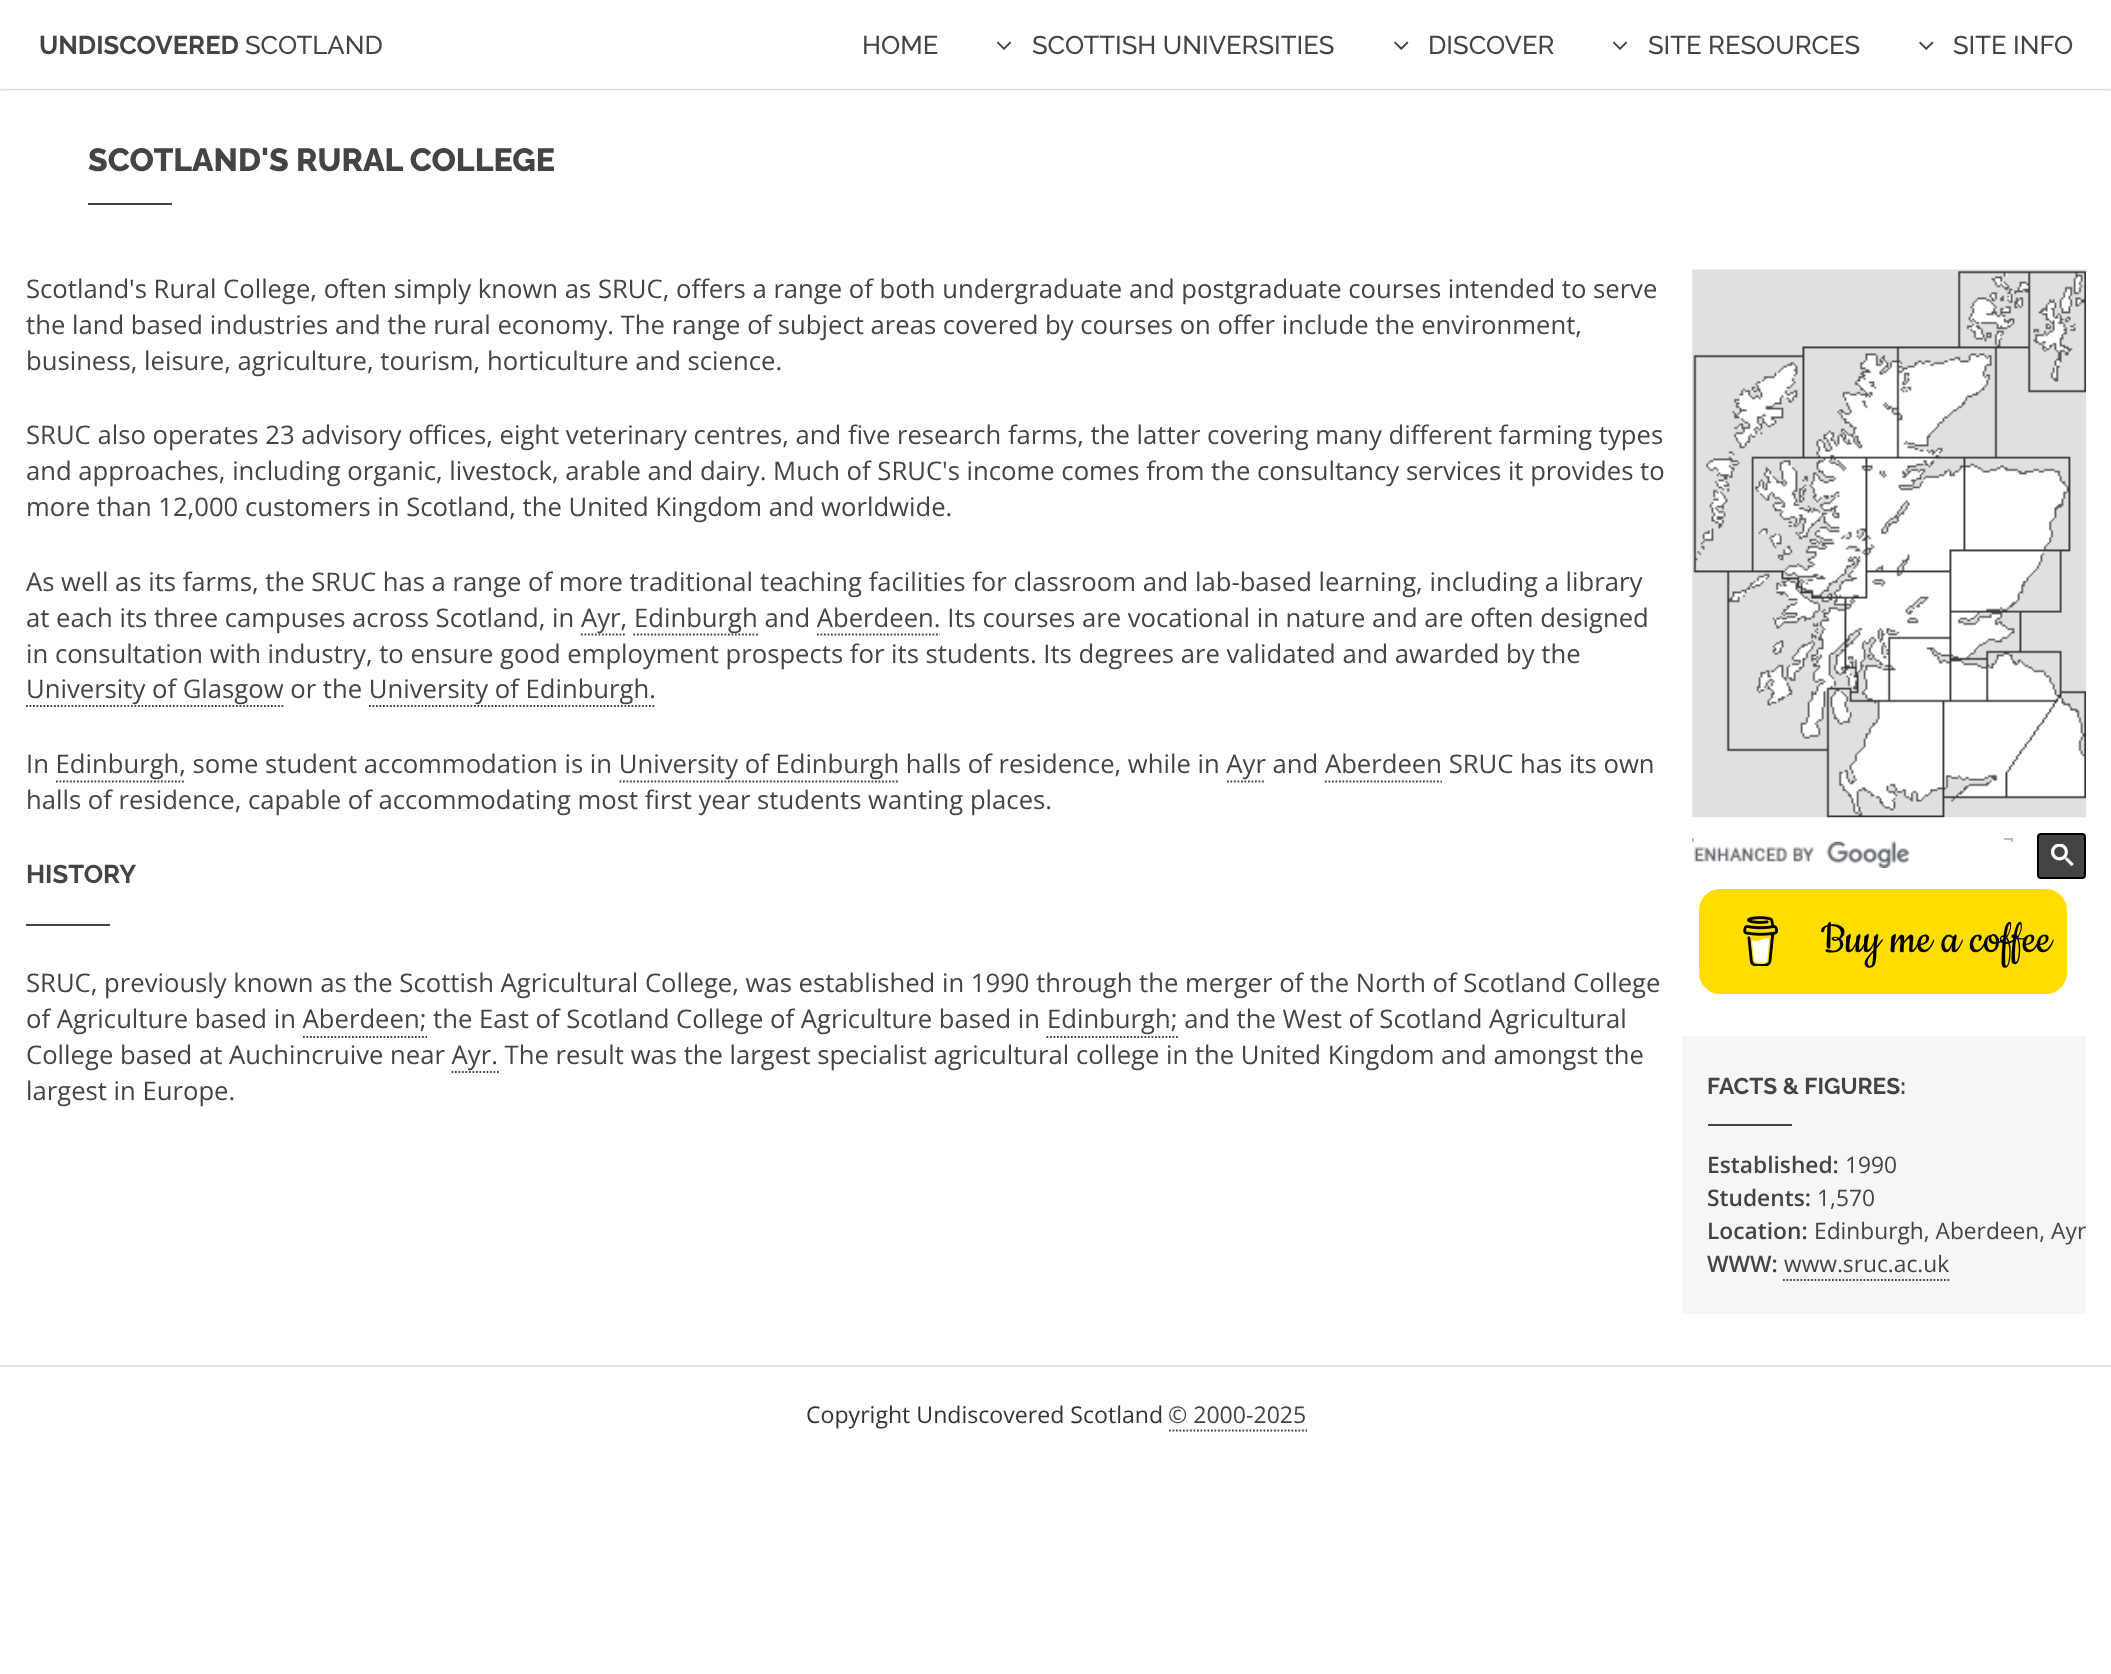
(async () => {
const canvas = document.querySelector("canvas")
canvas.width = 2111
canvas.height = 1674
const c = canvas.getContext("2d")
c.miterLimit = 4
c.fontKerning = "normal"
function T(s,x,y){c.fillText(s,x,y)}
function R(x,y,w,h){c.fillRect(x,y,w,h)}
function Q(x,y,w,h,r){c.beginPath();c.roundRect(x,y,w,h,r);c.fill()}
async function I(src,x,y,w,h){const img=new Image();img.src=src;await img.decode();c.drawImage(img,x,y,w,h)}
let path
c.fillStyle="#fff"
R(0,0,2111,1674)
c.save()
c.beginPath()
c.rect(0,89,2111,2)
c.clip()
c.fillStyle="#00000059"
c.filter="blur(1.5px)"
c.beginPath()
c.rect(0,0,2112,89)
c.fill()
c.filter="none"
c.restore()
c.font="bold 25.67px Raleway"
c.fillStyle="#444"
T("UNDISCOVERED",39,54)
c.font="500 25.67px Raleway"
T("SCOTLAND",245,54)
T("HOME",862,54)
await I("1.png",996,41,16,9)
T("SCOTTISH UNIVERSITIES",1032,54)
await I("2.png",1394,41,15,9)
T("DISCOVER",1428,54)
await I("1.png",1612,41,16,9)
T("SITE RESOURCES",1648,54)
await I("2.png",1919,41,15,9)
T("SITE INFO",1953,54)
c.font="800 32.1px Raleway"
T("SCOTLAND'S RURAL COLLEGE",88,171)
R(88,203,84,2)
c.font="25.67px Open Sans"
T("Scotland's Rural College, often simply known as SRUC, offers a range of both undergraduate and postgraduate courses intended to serve",26,298)
T("the land based industries and the rural economy. The range of subject areas covered by courses on offer include the environment,",26,334)
T("business, leisure, agriculture, tourism,",26,370)
T("horticulture and science.",487,370)
T("SRUC also operates 23 advisory offices, eight veterinary centres, and five research farms, the latter covering many different farming types",26,444)
T("and approaches, including organic, livestock, arable and dairy. Much of SRUC's income comes from the consultancy services it provides to",26,480)
T("more than 12,000 customers in Scotland, the United Kingdom and worldwide.",26,516)
T("As well as its farms, the SRUC has a range of more traditional",26,591)
T("teaching facilities for classroom and lab-based learning, including a library",760,591)
T("at each its three campuses across Scotland, in",26,627)
path = new Path2D("M581 634.5h45.5")
c.strokeStyle="#444"
c.lineWidth=1.8
c.setLineDash([1.75,1.75])
c.stroke(path)
T("Ayr,",581,627)
path = new Path2D("M633.5 634.5h124.5")
c.stroke(path)
T("Edinburgh and Aberdeen. Its courses are vocational in nature and are often designed",634,627)
path = new Path2D("M817 634.5h123")
c.stroke(path)
T("in consultation with industry, to ensure good employment prospects for its students. Its degrees are validated and awarded by the",26,663)
T("University of Glasgow or the University of Edinburgh.",26,698)
path = new Path2D("M26 706h257.5")
c.stroke(path)
path = new Path2D("M369 706h287")
c.stroke(path)
T("In Edinburgh, some student accommodation is in University of Edinburgh halls of residence, while in Ayr and Aberdeen SRUC has its own",26,773)
path = new Path2D("M56 781.5h129.5")
c.stroke(path)
path = new Path2D("M619.5 781.5h280")
c.stroke(path)
path = new Path2D("M1227 781.5h38")
c.stroke(path)
path = new Path2D("M1325 781.5h117")
c.stroke(path)
T("halls of residence, capable of accommodating most first year students wanting places.",26,809)
c.font="bold 25.67px Raleway"
T("HISTORY",26,883)
R(26,924,84,2)
c.font="25.67px Open Sans"
T("SRUC, previously known as the Scottish Agricultural College, was established in 1990 through the merger of the North of Scotland College",26,992)
T("of Agriculture based in Aberdeen; the East of Scotland College of Agriculture based in",26,1028)
T("Edinburgh; and the West of Scotland Agricultural",1047,1028)
path = new Path2D("M1046.5 1037h131.5")
c.stroke(path)
path = new Path2D("M303 1037h124")
c.stroke(path)
T("College based at Auchincruive near Ayr. The result was the largest specialist agricultural college in the United Kingdom and amongst the",26,1064)
path = new Path2D("M451.5 1072h47.5")
c.stroke(path)
T("largest in Europe.",26,1100)
await I("3.png",1692,269,394,549)
c.fillStyle="#bbb"
R(1692,838,321,4)
c.fillStyle="#fff"
R(1694,838,310,4)
await I("4.png",1694,841,216,27)
R(2004,840,7,2)
c.fillStyle="#444"
c.beginPath()
c.roundRect(2038,834,47,44,3)
c.fill()
c.strokeStyle="#000"
c.lineWidth=2
c.setLineDash([])
c.stroke()
await I("5.png",2051,844,23,22)
c.fillStyle="#fd0"
Q(1699,889,368,105,21)
await I("6.png",1743,916,35,50)
c.font="49px Cookie"
c.fillStyle="#000"
T("Buy me a coffee",1821,952)
c.fillStyle="#f6f6f6"
R(1682,1036,404,278)
c.font="bold 22.75px Raleway"
c.fillStyle="#444"
T("FACTS & FIGURES:",1707,1094)
R(1708,1124,84,2)
c.font="600 22.75px Open Sans"
T("Established:",1707,1173)
c.font="22.75px Open Sans"
T("1990",1845,1173)
c.font="600 22.75px Open Sans"
T("Students:",1707,1206)
c.font="22.75px Open Sans"
T("1,570",1817,1206)
c.font="600 22.75px Open Sans"
T("Location:",1707,1239)
c.font="22.75px Open Sans"
T("Edinburgh, Aberdeen, Ayr",1814,1239)
c.font="600 22.75px Open Sans"
T("WWW:",1707,1272)
c.font="22.75px Open Sans"
T("www.sruc.ac.uk",1784,1272)
path = new Path2D("M1783 1280h166.5")
c.strokeStyle="#444"
c.lineWidth=1.8
c.setLineDash([1.75,1.75])
c.stroke(path)
c.fillStyle="#e6e6e6"
R(0,1365,2111,2)
c.font="23.1px Open Sans"
c.fillStyle="#333"
T("Copyright Undiscovered Scotland",806,1423)
c.fillStyle="#444"
T("© 2000-2025",1168,1423)
path = new Path2D("M1169 1430.5h138")
c.stroke(path)
})()
